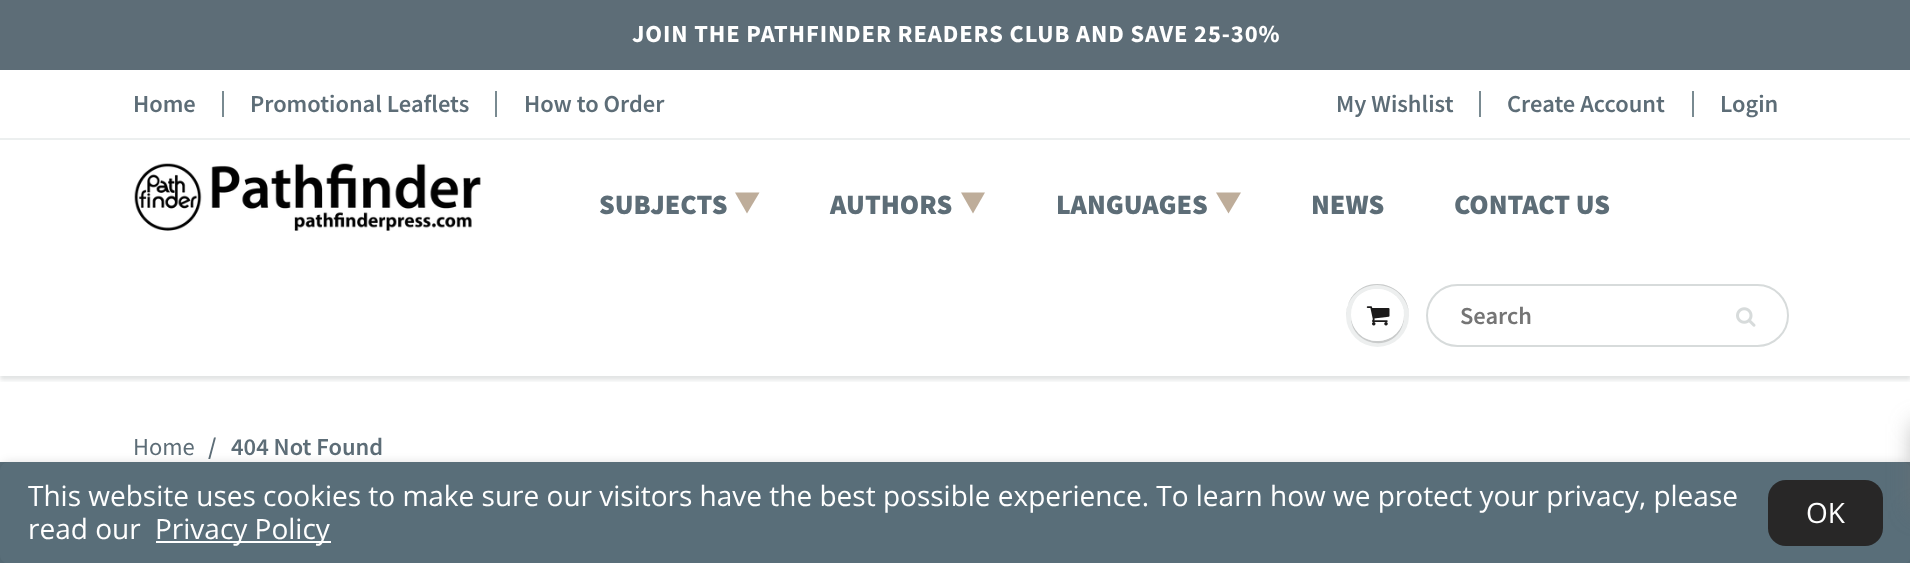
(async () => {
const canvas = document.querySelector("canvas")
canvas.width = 1910
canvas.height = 563
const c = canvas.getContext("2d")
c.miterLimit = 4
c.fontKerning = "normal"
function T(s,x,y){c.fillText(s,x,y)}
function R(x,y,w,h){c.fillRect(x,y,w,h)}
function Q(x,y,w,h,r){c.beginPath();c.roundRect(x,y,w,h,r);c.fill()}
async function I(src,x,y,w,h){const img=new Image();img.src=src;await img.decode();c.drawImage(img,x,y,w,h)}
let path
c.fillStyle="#fff"
R(0,0,1910,563)
c.fillStyle="#5d6d77"
R(0,0,1910,70)
c.letterSpacing="0.9px"
c.font="bold 24.5px Source Sans Pro"
c.fillStyle="#fff"
T("JOIN THE PATHFINDER READERS CLUB AND SAVE 25-30%",632,42)
c.letterSpacing="0px"
c.font="600 24.5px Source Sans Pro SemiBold"
c.fillStyle="#5d6d77"
T("Home",133,112)
c.fillStyle="#798a91"
R(222,91,2,26)
c.fillStyle="#5d6d77"
T("Promotional Leaflets",250,112)
c.fillStyle="#798a91"
R(495,91,2,26)
c.fillStyle="#5d6d77"
T("How to Order",524,112)
T("My Wishlist",1336,112)
c.fillStyle="#798a91"
R(1479,91,2,26)
c.fillStyle="#5d6d77"
T("Create Account",1507,112)
c.fillStyle="#798a91"
R(1692,91,2,26)
c.fillStyle="#5d6d77"
T("Login",1720,112)
c.save()
c.beginPath()
c.rect(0,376,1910,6)
c.clip()
c.fillStyle="#0b191c1f"
c.filter="blur(2px)"
c.beginPath()
c.rect(0,142,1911,238)
c.fill()
c.filter="none"
c.restore()
c.fillStyle="#ecefef"
R(0,138,1910,2)
await I("1.png",134,163,347,68)
c.font="900 28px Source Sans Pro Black"
c.fillStyle="#5d6d77"
T("SUBJECTS",599,214)
c.fillStyle="#bead9a"
path = new Path2D("M735 192.5h24.5l-12.5 21z")
c.fill(path)
c.fillStyle="#5d6d77"
T("AUTHORS",830,214)
c.fillStyle="#bead9a"
path = new Path2D("M961 192.5h24l-12 21z")
c.fill(path)
c.fillStyle="#5d6d77"
T("LANGUAGES",1056,214)
c.fillStyle="#bead9a"
path = new Path2D("M1216 192.5h25l-12.5 21z")
c.fill(path)
c.fillStyle="#5d6d77"
T("NEWS",1311,214)
T("CONTACT US",1454,214)
c.fillStyle="#edefef"
c.beginPath()
c.arc(1377.5,315.5,31.5,0,7)
c.fill()
c.fillStyle="#c9cbcb"
path = new Path2D("M1377 285c18 0 32 14 32 31c1-31-40-44-58-18c-3 5-5 12-5 18c0-17 14-31 31-31z")
c.fill(path)
path = new Path2D("M1351 316c-1 29 40 38 51 11c2-5 3-12 1-17c6 27-31 43-47 20c-3-4-5-9-5-14z")
c.fill(path)
c.fillStyle="#fff"
Q(1351,289,53,52,26)
path = new Path2D("M1377 290c15 0 26 11 27 26c1-26-34-37-49-16c-3 5-4 11-4 16c1-15 12-26 26-26z")
c.fill(path)
await I("2.png",1366,306,24,20)
c.beginPath()
c.roundRect(1427,285,361,61,30.5)
c.strokeStyle="#d7dbdb"
c.lineWidth=2
c.stroke()
c.font="600 24.5px Source Sans Pro SemiBold"
c.fillStyle="#757575"
T("Search",1460,324)
await I("3.png",1736,307,20,20)
c.font="24.5px Source Sans Pro"
c.fillStyle="#5d6d77"
T("Home",133,455)
c.font="600 24.5px Source Sans Pro SemiBold"
T("/",208,455)
T("404 Not Found",231,455)
c.fillStyle="#596e79"
R(0,462,1910,101)
c.save()
path = new Path2D("M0 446h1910v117h-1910zm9 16h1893c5 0 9 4 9 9v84c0 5-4 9-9 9h-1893c-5 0-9-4-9-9v-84c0-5 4-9 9-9z")
c.clip(path,"evenodd")
c.fillStyle="#0000001f"
c.filter="blur(5px)"
c.beginPath()
c.roundRect(0,462,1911,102,9)
c.fill()
c.filter="none"
c.restore()
c.fillStyle="#282727"
Q(1768,480,115,66,18)
c.fillStyle="#75757580"
c.filter="blur(12px)"
c.beginPath()
c.rect(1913,424,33,87)
c.fill()
c.filter="none"
c.font="28px Open Sans"
c.fillStyle="#fff"
T("This website uses cookies to make sure our visitors have the best possible experience. To learn how we protect your privacy, please",28,506)
T("read our",28,539)
R(156,541,175,2)
T("Privacy Policy",155,539)
T("OK",1806,523)
})()
